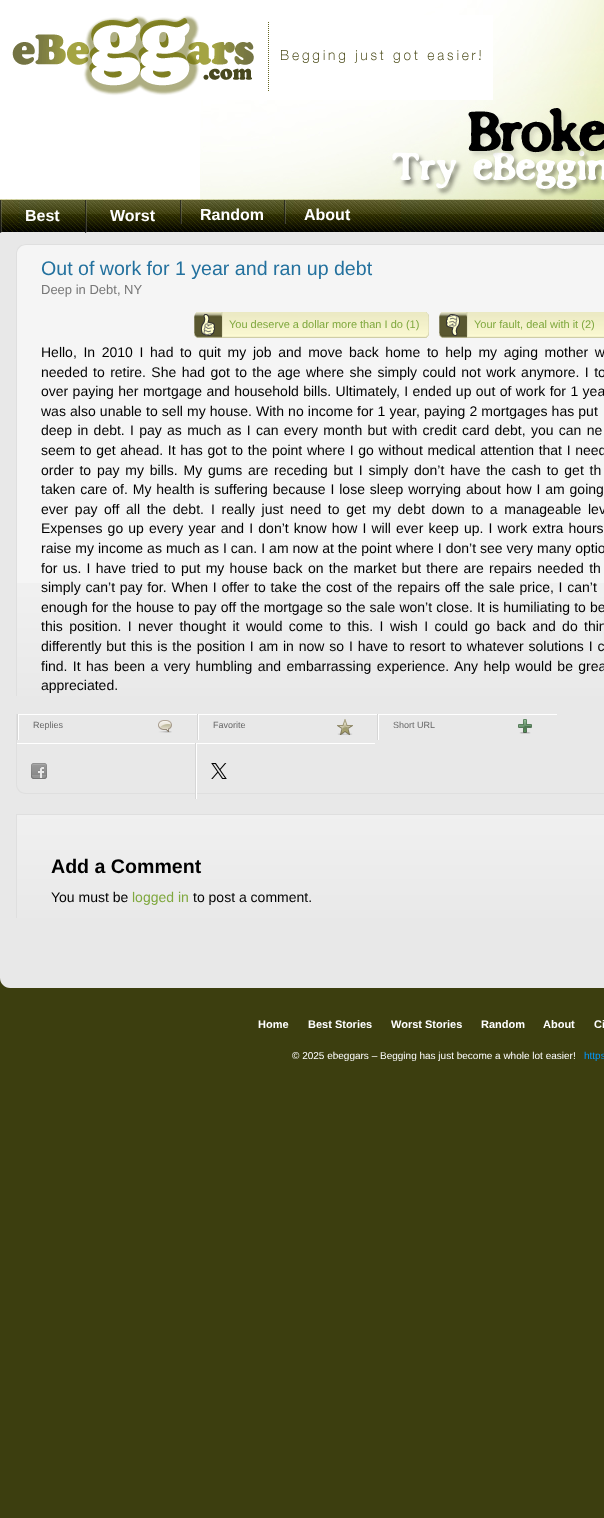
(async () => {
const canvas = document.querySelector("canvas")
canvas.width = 604
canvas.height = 1518
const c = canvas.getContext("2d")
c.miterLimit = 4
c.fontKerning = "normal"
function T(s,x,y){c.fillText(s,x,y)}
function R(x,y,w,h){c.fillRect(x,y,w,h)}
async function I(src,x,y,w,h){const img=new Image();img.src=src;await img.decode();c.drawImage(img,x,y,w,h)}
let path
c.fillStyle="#3c3e0f"
R(0,0,604,1518)
c.fillStyle="#fff"
R(0,0,200,199)
await I("1.png",200,0,404,199)
await I("2.png",12,15,481,85)
await I("3.png",0,199,604,33)
c.fillStyle="#e8e8e8"
path = new Path2D("M0 232h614v746c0 5.5-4.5 10-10 10h-594c-5.5 0-10-4.5-10-10z")
c.fill(path)
await I("4.png",0,200,2,33)
c.font="bold 16px Liberation Sans"
c.fillStyle="#fff"
T("Best",25,221)
await I("5.png",85,200,2,33)
T("Worst",110,221)
await I("6.png",180,200,2,24)
T("Random",200,220)
await I("7.png",284,200,2,24)
T("About",304,220)
c.fillStyle="#f5f5f5"
path = new Path2D("M26 244h578c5.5 0 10 4.5 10 10v442h-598v-442c0-5.5 4.5-10 10-10z")
c.fill(path)
await I("8.png",17,583,587,113)
c.fillStyle="#dfdfdf"
path = new Path2D("M26 244h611c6 0 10 4 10 10v442h-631v-442c0-6 4-10 10-10zm0 1h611c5 0 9 4 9 9v442h-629v-442c0-5 4-9 9-9z")
c.fill(path,"evenodd")
c.font="19.6px Liberation Sans"
c.fillStyle="#23719e"
T("Out of work for 1 year and ran up debt",41,275)
c.font="13px Liberation Sans"
c.fillStyle="#777"
T("Deep in Debt, NY",41,294)
await I("9.png",194,312,235,26)
c.font="11px Liberation Sans"
c.fillStyle="#7fa83e"
T("You deserve a dollar more than I do (1)",229,328)
await I("10.png",439,312,165,26)
T("Your fault, deal with it (2)",474,328)
c.wordSpacing="2.75px"
c.font="14px Liberation Sans"
c.fillStyle="#000"
T("Hello, In 2010 I had to quit my job and move back home to help my aging mother w",41,357)
c.wordSpacing="1.5px"
T("needed to retire. She had got to the age where she simply could not work anymore. I to",41,377)
c.wordSpacing="0.5px"
T("over paying her mortgage and household bills. Ultimately, I ended up out of work for 1 yea",41,396)
c.wordSpacing="0.25px"
T("was also unable to sell my house. With no income for 1 year, paying 2 mortgages has put",41,416)
c.wordSpacing="1.4px"
T("deep in debt. I pay as much as I can every month but with credit card debt, you can ne",41,435)
c.wordSpacing="0.75px"
T("seem to get ahead. It has got to the point where I go without medical attention that I need",41,455)
c.wordSpacing="1.9px"
T("order to pay my bills. My gums are receding but I simply don’t have the cash to get th",41,475)
c.wordSpacing="1px"
T("taken care of. My health is suffering because I lose sleep worrying about how I am going",41,494)
c.wordSpacing="2.75px"
T("ever pay off all the debt.",41,514)
T("I really just need to get my debt down to a manageable lev",211,514)
c.wordSpacing="1.25px"
T("Expenses go up every year and I don’t know how I will ever keep up. I work extra hours",41,533)
c.wordSpacing="0.1px"
T("raise my income as much as I can. I am now at the point where I don’t see very many optio",41,553)
c.wordSpacing="1.4px"
T("for us. I have tried to put my house back on the market but there are repairs needed th",41,573)
c.wordSpacing="0.9px"
T("simply can’t pay for. When I offer to take the cost of the repairs off the sale price, I can’t",41,592)
c.wordSpacing="0.25px"
T("enough for the house to pay off the mortgage so the sale won’t close. It is humiliating to be",41,612)
c.wordSpacing="2.5px"
T("this position. I never thought it would come to this. I wish I could go back and do thin",41,631)
c.wordSpacing="1px"
T("differently but this is the position I am in now so I have to resort to whatever solutions I c",41,651)
c.wordSpacing="1.5px"
T("find. It has been a very humbling and embarrassing experience.",41,671)
T("Any help would be grea",454,671)
c.wordSpacing="0px"
T("appreciated.",41,690)
c.fillStyle="#dfdfdf"
path = new Path2D("M16 714h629v70c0 6-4 10-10 10h-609c-6 0-10-4-10-10zm1 0h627v70c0 5-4 9-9 9h-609c-5 0-9-4-9-9z")
c.fill(path,"evenodd")
c.fillStyle="#d6d6d6"
R(17,714,1,26)
await I("11.png",158,720,14,13)
c.fillStyle="#fff"
R(18,714,539,1)
c.fillStyle="#d6d6d6"
R(197,714,1,26)
c.fillStyle="#fff"
R(18,714,1,26)
c.font="9px Liberation Sans"
c.fillStyle="#666"
T("Replies",33,728)
await I("12.png",337,719,16,16)
c.fillStyle="#d6d6d6"
R(377,714,1,26)
c.fillStyle="#fff"
R(198,714,1,26)
c.fillStyle="#666"
T("Favorite",213,728)
await I("13.png",518,719,14,15)
c.fillStyle="#fff"
R(378,714,1,26)
c.fillStyle="#666"
T("Short URL",393,728)
c.fillStyle="#fff"
R(17,743,358,1)
c.fillStyle="#d6d6d6"
R(195,743,1,56)
await I("14.png",31,763,16,16)
c.fillStyle="#fff"
R(196,743,1,56)
await I("15.png",211,763,16,16)
await I("16.png",17,815,587,103)
c.fillStyle="#dfdfdf"
R(16,814,588,1)
R(16,814,1,104)
c.font="bold 19.6px Liberation Sans"
c.fillStyle="#000"
T("Add a Comment",51,873)
c.font="14px Liberation Sans"
T("You must be",51,902)
c.fillStyle="#7fa83e"
T("logged in",132,902)
c.fillStyle="#000"
T("to post a comment.",193,902)
c.font="bold 11px Liberation Sans"
c.fillStyle="#fff"
T("Home",258,1028)
T("Best Stories",308,1028)
T("Worst Stories",391,1028)
T("Random",481,1028)
T("About",543,1028)
T("Ci",594,1028)
c.font="10px Liberation Sans"
T("© 2025 ebeggars – Begging has just become a whole lot easier!",292,1059)
c.fillStyle="#09f"
T("https",584,1059)
})()
